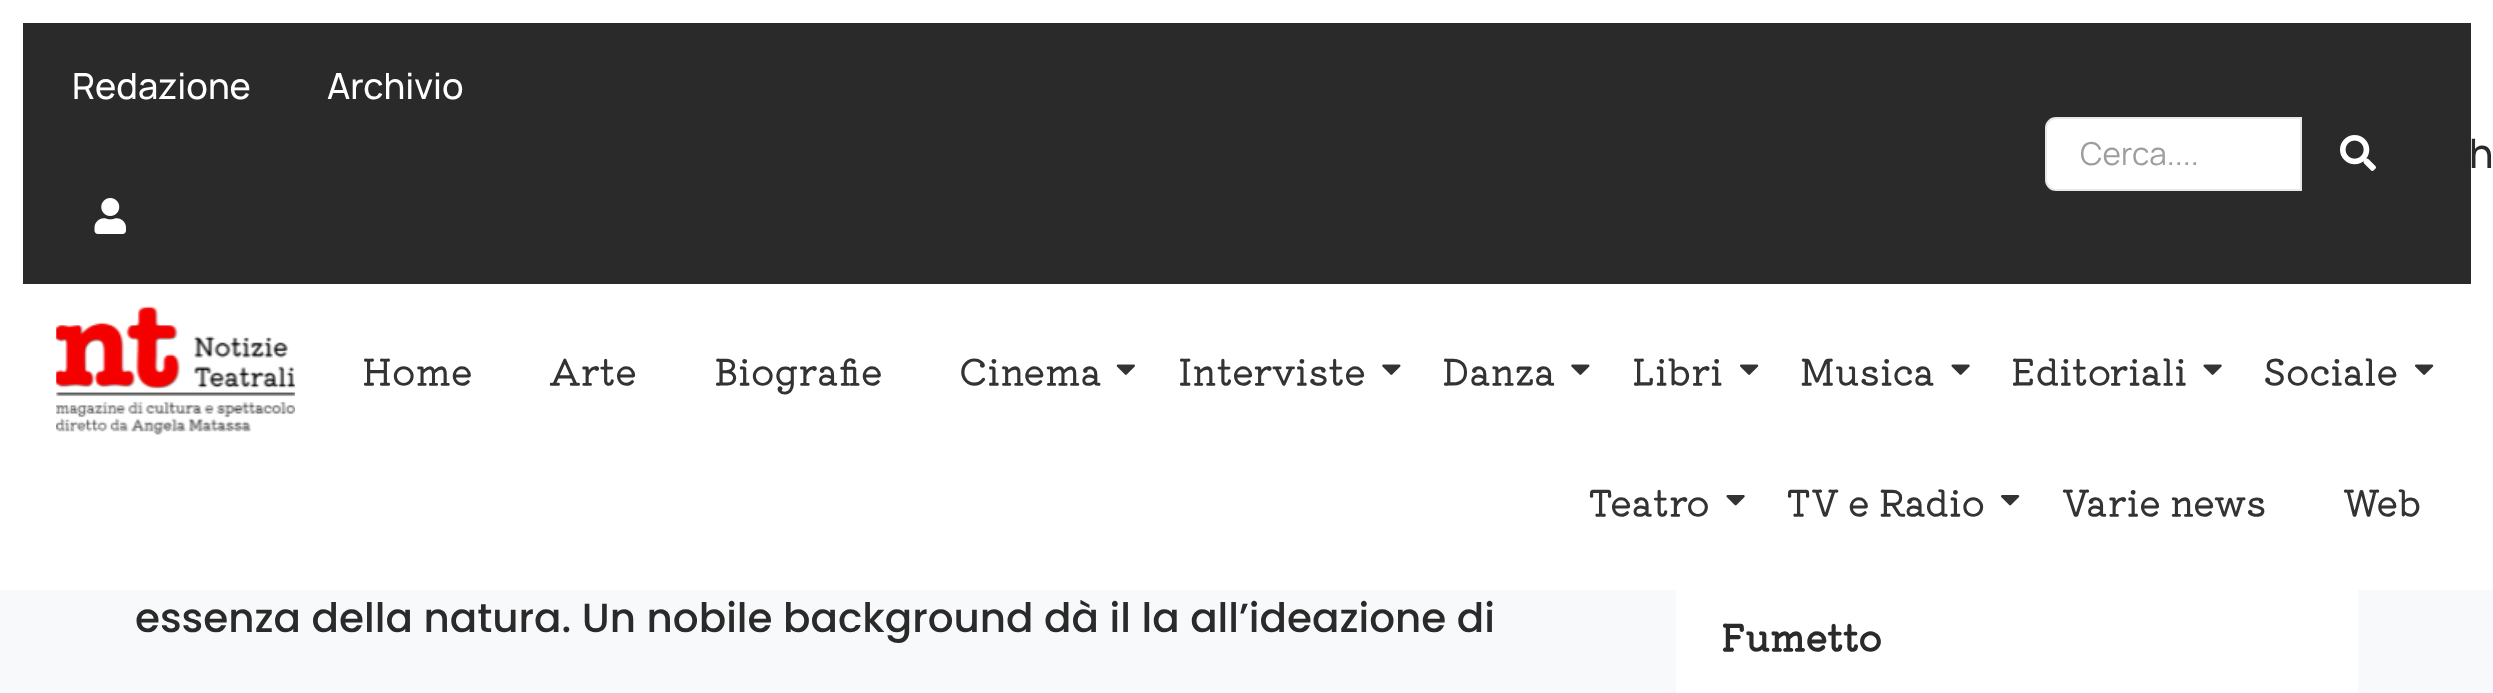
(async () => {
const canvas = document.querySelector("canvas")
canvas.width = 2493
canvas.height = 693
const c = canvas.getContext("2d")
c.miterLimit = 4
c.fontKerning = "normal"
function T(s,x,y){c.fillText(s,x,y)}
function R(x,y,w,h){c.fillRect(x,y,w,h)}
async function I(src,x,y,w,h){const img=new Image();img.src=src;await img.decode();c.drawImage(img,x,y,w,h)}
c.fillStyle="#f8f9fa"
R(0,0,2493,693)
c.fillStyle="#fff"
R(0,0,2493,590)
c.fillStyle="#2a2a2a"
R(23,23,2448,261)
c.font="500 36px Manrope"
c.fillStyle="#fff"
T("Redazione",72,99)
T("Archivio",327,99)
await I("1.png",94,198,32,36)
c.beginPath()
c.roundRect(2046,118,255,72,[10,0,0,10])
c.fill()
c.strokeStyle="#e8e8e8"
c.lineWidth=2
c.stroke()
c.font="31.5px Manrope"
c.fillStyle="#9e9e9e"
T("Cerca....",2080,165)
await I("2.png",2340,135,36,36)
c.font="500 40.5px Manrope"
c.fillStyle="#2a2a2a"
T("h",2469,168)
await I("3.png",56,306,239,129)
c.font="500 36px Kiwi Maru"
c.fillStyle="#333"
T("Home",362,385)
T("Arte",549,385)
T("Biografie",714,385)
T("Cinema",959,385)
await I("4.png",1116,364,19,11)
T("Interviste",1178,385)
await I("5.png",1382,364,19,11)
T("Danza",1442,385)
await I("5.png",1571,364,19,11)
T("Libri",1632,385)
await I("6.png",1740,364,19,11)
T("Musica",1800,385)
await I("7.png",1951,364,19,11)
T("Editoriali",2011,385)
await I("7.png",2203,364,19,11)
T("Sociale",2263,385)
await I("6.png",2415,364,19,11)
T("Teatro",1588,516)
await I("8.png",1726,495,19,11)
T("TV e Radio",1786,516)
await I("9.png",2001,495,19,11)
T("Varie news",2062,516)
T("Web",2343,516)
c.font="500 40.5px Poppins"
c.fillStyle="#2a2a2a"
T("essenza della natura. Un nobile background dà il la all’ideazione di",135,632)
c.fillStyle="#fff"
R(1676,590,682,103)
c.font="bold 36px Kiwi Maru"
c.fillStyle="#2a2a2a"
T("Fumetto",1721,651)
})()
